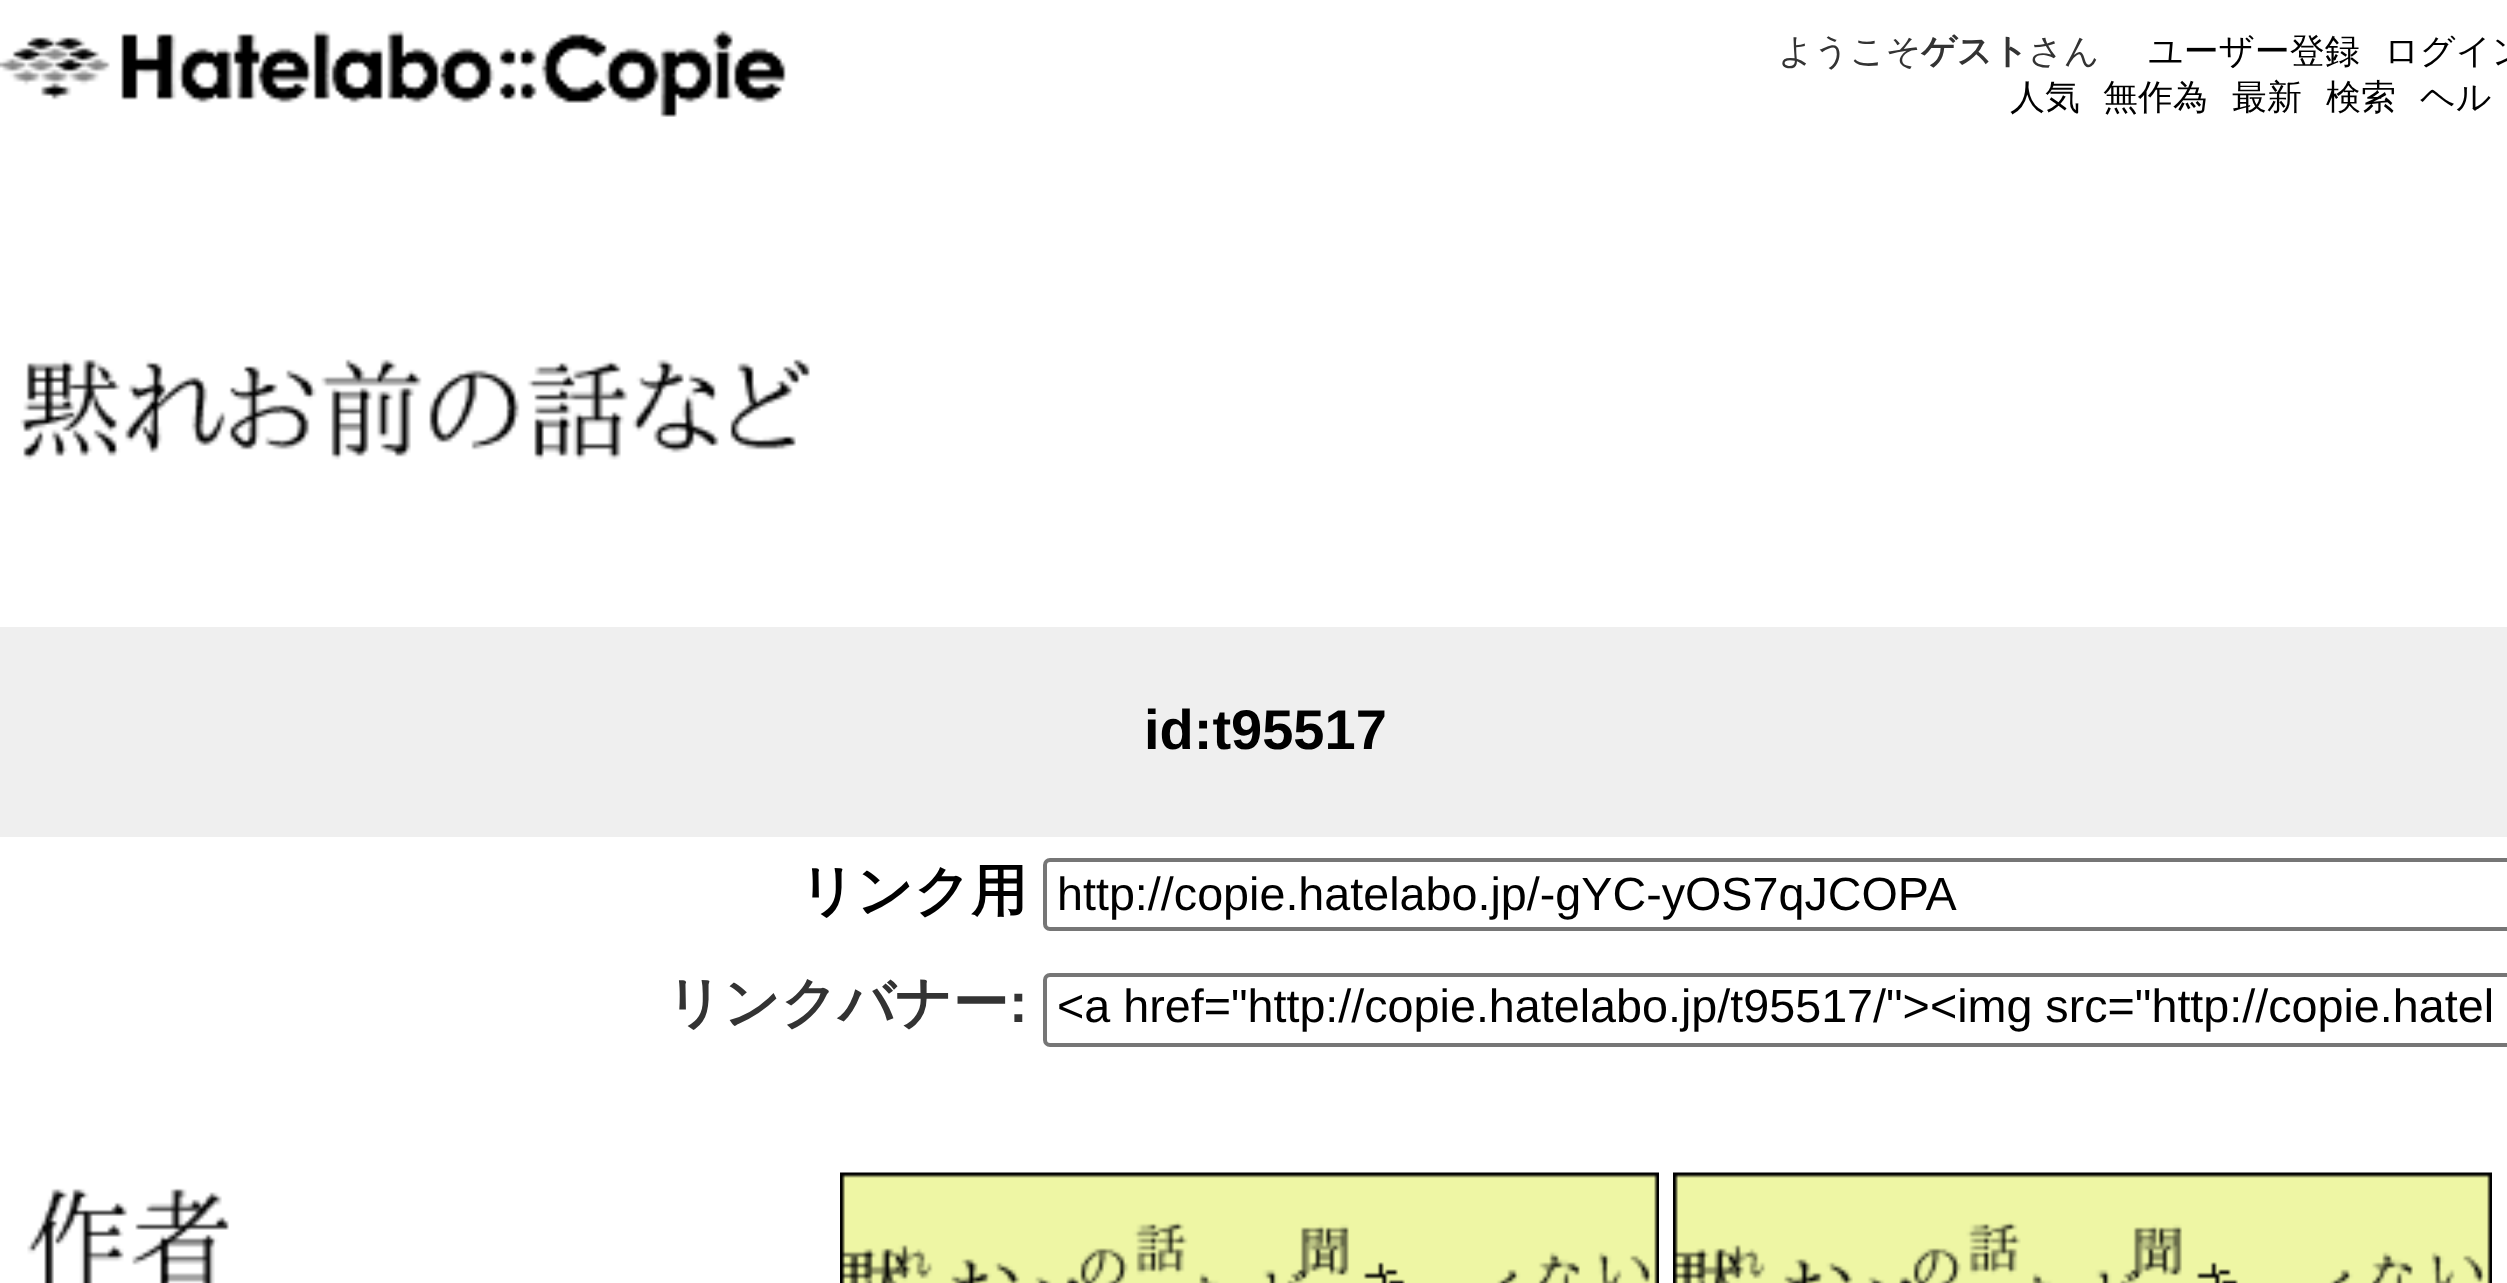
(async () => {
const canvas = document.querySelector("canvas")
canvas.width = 2507
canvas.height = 1283
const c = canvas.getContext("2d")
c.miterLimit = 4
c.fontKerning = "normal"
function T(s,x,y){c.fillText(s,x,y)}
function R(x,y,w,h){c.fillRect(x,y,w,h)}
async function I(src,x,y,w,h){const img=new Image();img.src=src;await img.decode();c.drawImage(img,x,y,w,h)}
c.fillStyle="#fff"
R(0,0,2507,1283)
await I("1.png",0,30,786,87)
c.font="500 35px WenQuanYi Zen Hei"
c.fillStyle="#333"
T("ようこそ",1778,63)
c.font="bold 35px WenQuanYi Zen Hei"
T("ゲスト",1921,63)
c.font="500 35px WenQuanYi Zen Hei"
T("さん",2028,63)
c.fillStyle="#000"
T("ユーザー登録",2148,63)
T("ログイン",2384,63)
T("人気",2010,109)
T("無作為",2103,109)
T("最新",2232,109)
T("検索",2326,109)
T("ヘル",2420,109)
await I("2.png",20,359,790,101)
c.fillStyle="#efefef"
R(0,627,2507,210)
c.font="bold 56px Liberation Sans"
c.fillStyle="#000"
T("id:t95517",1144,749)
c.font="bold 56px WenQuanYi Zen Hei"
T("リンク用",799,910)
c.beginPath()
c.roundRect(1045,860,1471,69,5)
c.strokeStyle="#767676"
c.lineWidth=4
c.stroke()
c.font="46.7px Liberation Sans"
T("http://copie.hatelabo.jp/-gYC-yOS7qJCOPA",1057,910)
c.font="bold 56px WenQuanYi Zen Hei"
c.fillStyle="#333"
T("リンクバナー",666,1022)
c.font="bold 56px Liberation Sans"
T(":",1009,1022)
c.beginPath()
c.roundRect(1045,975,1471,70,5)
c.stroke()
c.font="46.7px Liberation Sans"
c.fillStyle="#000"
T("<a href=\"http://copie.hatelabo.jp/t95517/\"><img src=\"http://copie.hatel",1057,1022)
await I("3.png",27,1188,202,95)
await I("4.png",840,1172,819,111)
await I("5.png",1673,1172,819,111)
})()
